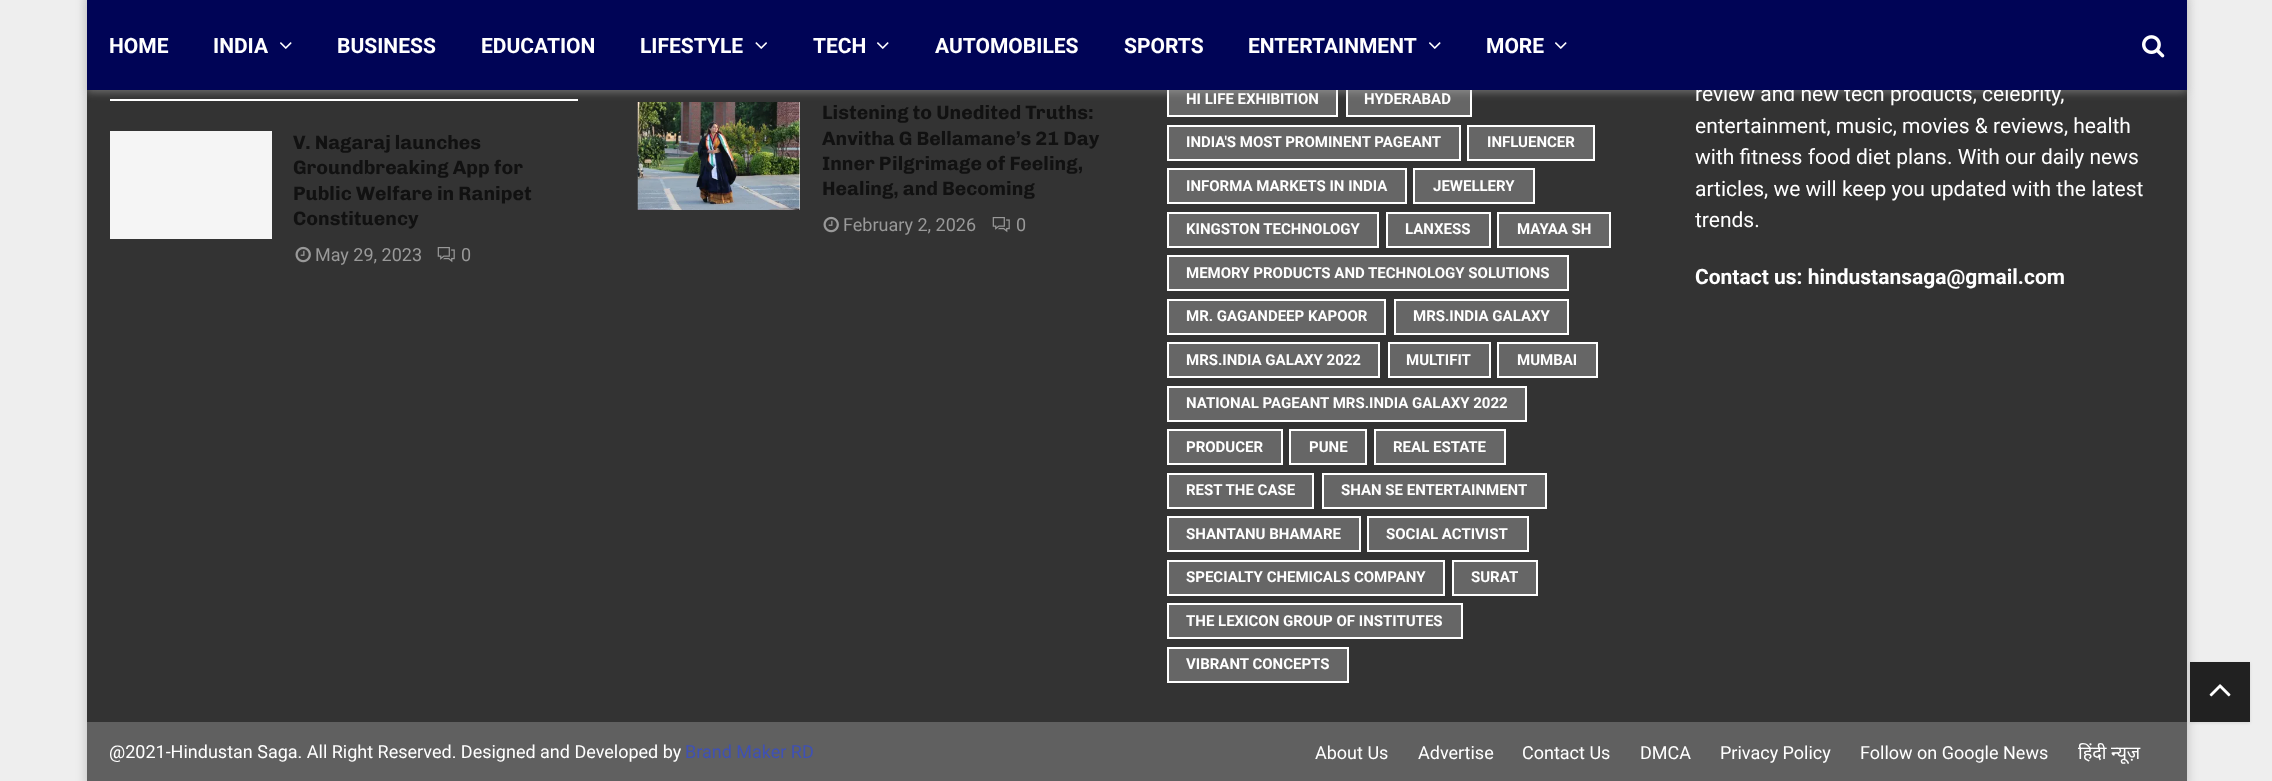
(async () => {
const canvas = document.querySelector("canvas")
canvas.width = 2272
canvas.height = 781
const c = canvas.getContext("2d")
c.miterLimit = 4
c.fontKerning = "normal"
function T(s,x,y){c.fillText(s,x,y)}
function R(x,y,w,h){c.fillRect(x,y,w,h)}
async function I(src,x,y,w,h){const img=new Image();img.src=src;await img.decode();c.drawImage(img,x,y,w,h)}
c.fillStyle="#eee"
R(0,0,2272,781)
c.fillStyle="#00000033"
c.filter="blur(6px)"
c.beginPath()
c.rect(87,-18,2100,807)
c.fill()
c.filter="none"
c.fillStyle="#333"
R(87,90,2100,632)
c.fillStyle="#fff"
R(110,99,468,2)
c.fillStyle="#f5f5f5"
R(799,102,1,108)
await I("6.png",637,102,163,108)
c.fillStyle="#666"
R(1169,90,167,25)
c.strokeStyle="#fff"
c.lineWidth=2
c.strokeRect(1168,82,169,34)
R(1348,90,122,25)
c.strokeRect(1347,82,124,34)
c.fillStyle="#bebebe75"
c.filter="blur(4px)"
c.beginPath()
c.rect(87,2,2100,90)
c.fill()
c.filter="none"
c.font="21px Roboto"
c.fillStyle="#fff"
T("review and new tech products, celebrity,",1695,101)
c.fillStyle="#000456"
R(87,0,2100,90)
c.font="bold 21px Roboto"
c.fillStyle="#fff"
T("HOME",109,53)
T("INDIA",213,53)
await I("1.png",280,42,12,7)
T("BUSINESS",337,53)
T("EDUCATION",481,53)
T("LIFESTYLE",640,53)
await I("2.png",755,42,12,7)
T("TECH",813,53)
await I("1.png",877,42,12,7)
T("AUTOMOBILES",935,53)
T("SPORTS",1124,53)
T("ENTERTAINMENT",1248,53)
await I("1.png",1429,42,12,7)
T("MORE",1486,53)
await I("1.png",1555,42,12,7)
await I("3.png",2142,35,23,23)
c.fillStyle="#f5f5f5"
R(110,131,162,108)
c.font="bold 19.5px Chivo"
c.fillStyle="#111"
T("V. Nagaraj launches",293,149)
T("Groundbreaking App for",293,174)
T("Public Welfare in Ranipet",293,200)
T("Constituency",293,225)
await I("4.png",295,246,16,17)
c.font="18px Roboto"
c.fillStyle="#999"
T("May 29, 2023",315,261)
await I("5.png",437,247,18,16)
T("0",461,261)
c.font="bold 19.5px Chivo"
c.fillStyle="#111"
T("Listening to Unedited Truths:",822,119)
T("Anvitha G Bellamane’s 21 Day",822,145)
T("Inner Pilgrimage of Feeling,",822,170)
T("Healing, and Becoming",822,195)
await I("4.png",823,216,16,17)
c.font="18px Roboto"
c.fillStyle="#999"
T("February 2, 2026",843,231)
await I("5.png",992,217,18,16)
T("0",1016,231)
c.font="bold 15px Roboto"
c.fillStyle="#fff"
T("HI LIFE EXHIBITION",1186,104)
T("HYDERABAD",1364,104)
c.fillStyle="#666"
c.beginPath()
c.rect(1168,126,292,34)
c.fill()
c.stroke()
c.fillStyle="#fff"
T("INDIA'S MOST PROMINENT PAGEANT",1186,147)
c.fillStyle="#666"
c.beginPath()
c.rect(1468,126,126,34)
c.fill()
c.stroke()
c.fillStyle="#fff"
T("INFLUENCER",1487,147)
c.fillStyle="#666"
c.beginPath()
c.rect(1168,169,238,34)
c.fill()
c.stroke()
c.fillStyle="#fff"
T("INFORMA MARKETS IN INDIA",1186,191)
c.fillStyle="#666"
c.beginPath()
c.rect(1414,169,120,34)
c.fill()
c.stroke()
c.fillStyle="#fff"
T("JEWELLERY",1433,191)
c.fillStyle="#666"
c.beginPath()
c.rect(1168,213,210,34)
c.fill()
c.stroke()
c.fillStyle="#fff"
T("KINGSTON TECHNOLOGY",1186,234)
c.fillStyle="#666"
c.beginPath()
c.rect(1387,213,103,34)
c.fill()
c.stroke()
c.fillStyle="#fff"
T("LANXESS",1405,234)
c.fillStyle="#666"
c.beginPath()
c.rect(1498,213,112,34)
c.fill()
c.stroke()
c.fillStyle="#fff"
T("MAYAA SH",1517,234)
c.fillStyle="#666"
c.beginPath()
c.rect(1168,256,400,34)
c.fill()
c.stroke()
c.fillStyle="#fff"
T("MEMORY PRODUCTS AND TECHNOLOGY SOLUTIONS",1186,278)
c.fillStyle="#666"
c.beginPath()
c.rect(1168,300,217,34)
c.fill()
c.stroke()
c.fillStyle="#fff"
T("MR. GAGANDEEP KAPOOR",1186,321)
c.fillStyle="#666"
c.beginPath()
c.rect(1395,300,173,34)
c.fill()
c.stroke()
c.fillStyle="#fff"
T("MRS.INDIA GALAXY",1413,321)
c.fillStyle="#666"
c.beginPath()
c.rect(1168,343,211,34)
c.fill()
c.stroke()
c.fillStyle="#fff"
T("MRS.INDIA GALAXY 2022",1186,365)
c.fillStyle="#666"
c.beginPath()
c.rect(1389,343,101,34)
c.fill()
c.stroke()
c.fillStyle="#fff"
T("MULTIFIT",1406,365)
c.fillStyle="#666"
c.beginPath()
c.rect(1498,343,99,34)
c.fill()
c.stroke()
c.fillStyle="#fff"
T("MUMBAI",1517,365)
c.fillStyle="#666"
c.beginPath()
c.rect(1168,387,358,34)
c.fill()
c.stroke()
c.fillStyle="#fff"
T("NATIONAL PAGEANT MRS.INDIA GALAXY 2022",1186,408)
c.fillStyle="#666"
c.beginPath()
c.rect(1168,430,114,34)
c.fill()
c.stroke()
c.fillStyle="#fff"
T("PRODUCER",1186,452)
c.fillStyle="#666"
c.beginPath()
c.rect(1290,430,76,34)
c.fill()
c.stroke()
c.fillStyle="#fff"
T("PUNE",1309,452)
c.fillStyle="#666"
c.beginPath()
c.rect(1375,430,130,34)
c.fill()
c.stroke()
c.fillStyle="#fff"
T("REAL ESTATE",1393,452)
c.fillStyle="#666"
c.beginPath()
c.rect(1168,474,145,34)
c.fill()
c.stroke()
c.fillStyle="#fff"
T("REST THE CASE",1186,495)
c.fillStyle="#666"
c.beginPath()
c.rect(1323,474,223,34)
c.fill()
c.stroke()
c.fillStyle="#fff"
T("SHAN SE ENTERTAINMENT",1341,495)
c.fillStyle="#666"
c.beginPath()
c.rect(1168,517,192,34)
c.fill()
c.stroke()
c.fillStyle="#fff"
T("SHANTANU BHAMARE",1186,539)
c.fillStyle="#666"
c.beginPath()
c.rect(1368,517,160,34)
c.fill()
c.stroke()
c.fillStyle="#fff"
T("SOCIAL ACTIVIST",1386,539)
c.fillStyle="#666"
c.beginPath()
c.rect(1168,561,276,34)
c.fill()
c.stroke()
c.fillStyle="#fff"
T("SPECIALTY CHEMICALS COMPANY",1186,582)
c.fillStyle="#666"
c.beginPath()
c.rect(1453,561,84,34)
c.fill()
c.stroke()
c.fillStyle="#fff"
T("SURAT",1471,582)
c.fillStyle="#666"
c.beginPath()
c.rect(1168,604,294,34)
c.fill()
c.stroke()
c.fillStyle="#fff"
T("THE LEXICON GROUP OF INSTITUTES",1186,626)
c.fillStyle="#666"
c.beginPath()
c.rect(1168,648,180,34)
c.fill()
c.stroke()
c.fillStyle="#fff"
T("VIBRANT CONCEPTS",1186,669)
c.font="21px Roboto"
T("entertainment, music, movies & reviews, health",1695,133)
T("with fitness food diet plans. With our daily news",1695,164)
T("articles, we will keep you updated with the latest",1695,196)
T("trends.",1695,227)
c.font="bold 21px Roboto"
T("Contact us: hindustansaga@gmail.com",1695,284)
c.fillStyle="#606060"
R(87,722,2100,59)
c.font="18px Roboto"
c.fillStyle="#fff"
T("@2021-Hindustan Saga. All Right Reserved. Designed and Developed by",109,758)
c.fillStyle="#3f51b5"
T("Brand Maker RD",685,758)
c.fillStyle="#fff"
T("About Us",1315,759)
T("Advertise",1418,759)
T("Contact Us",1522,759)
T("DMCA",1640,759)
T("Privacy Policy",1720,759)
T("Follow on Google News",1860,759)
c.font="18px Noto Sans"
T("हिंदी न्यूज़",2078,759)
c.fillStyle="#0000001a"
c.filter="blur(1.5px)"
c.beginPath()
c.rect(2190,663,60,60)
c.fill()
c.filter="none"
c.fillStyle="#212121"
R(2190,662,60,60)
await I("7.png",2209,684,22,13)
})()
